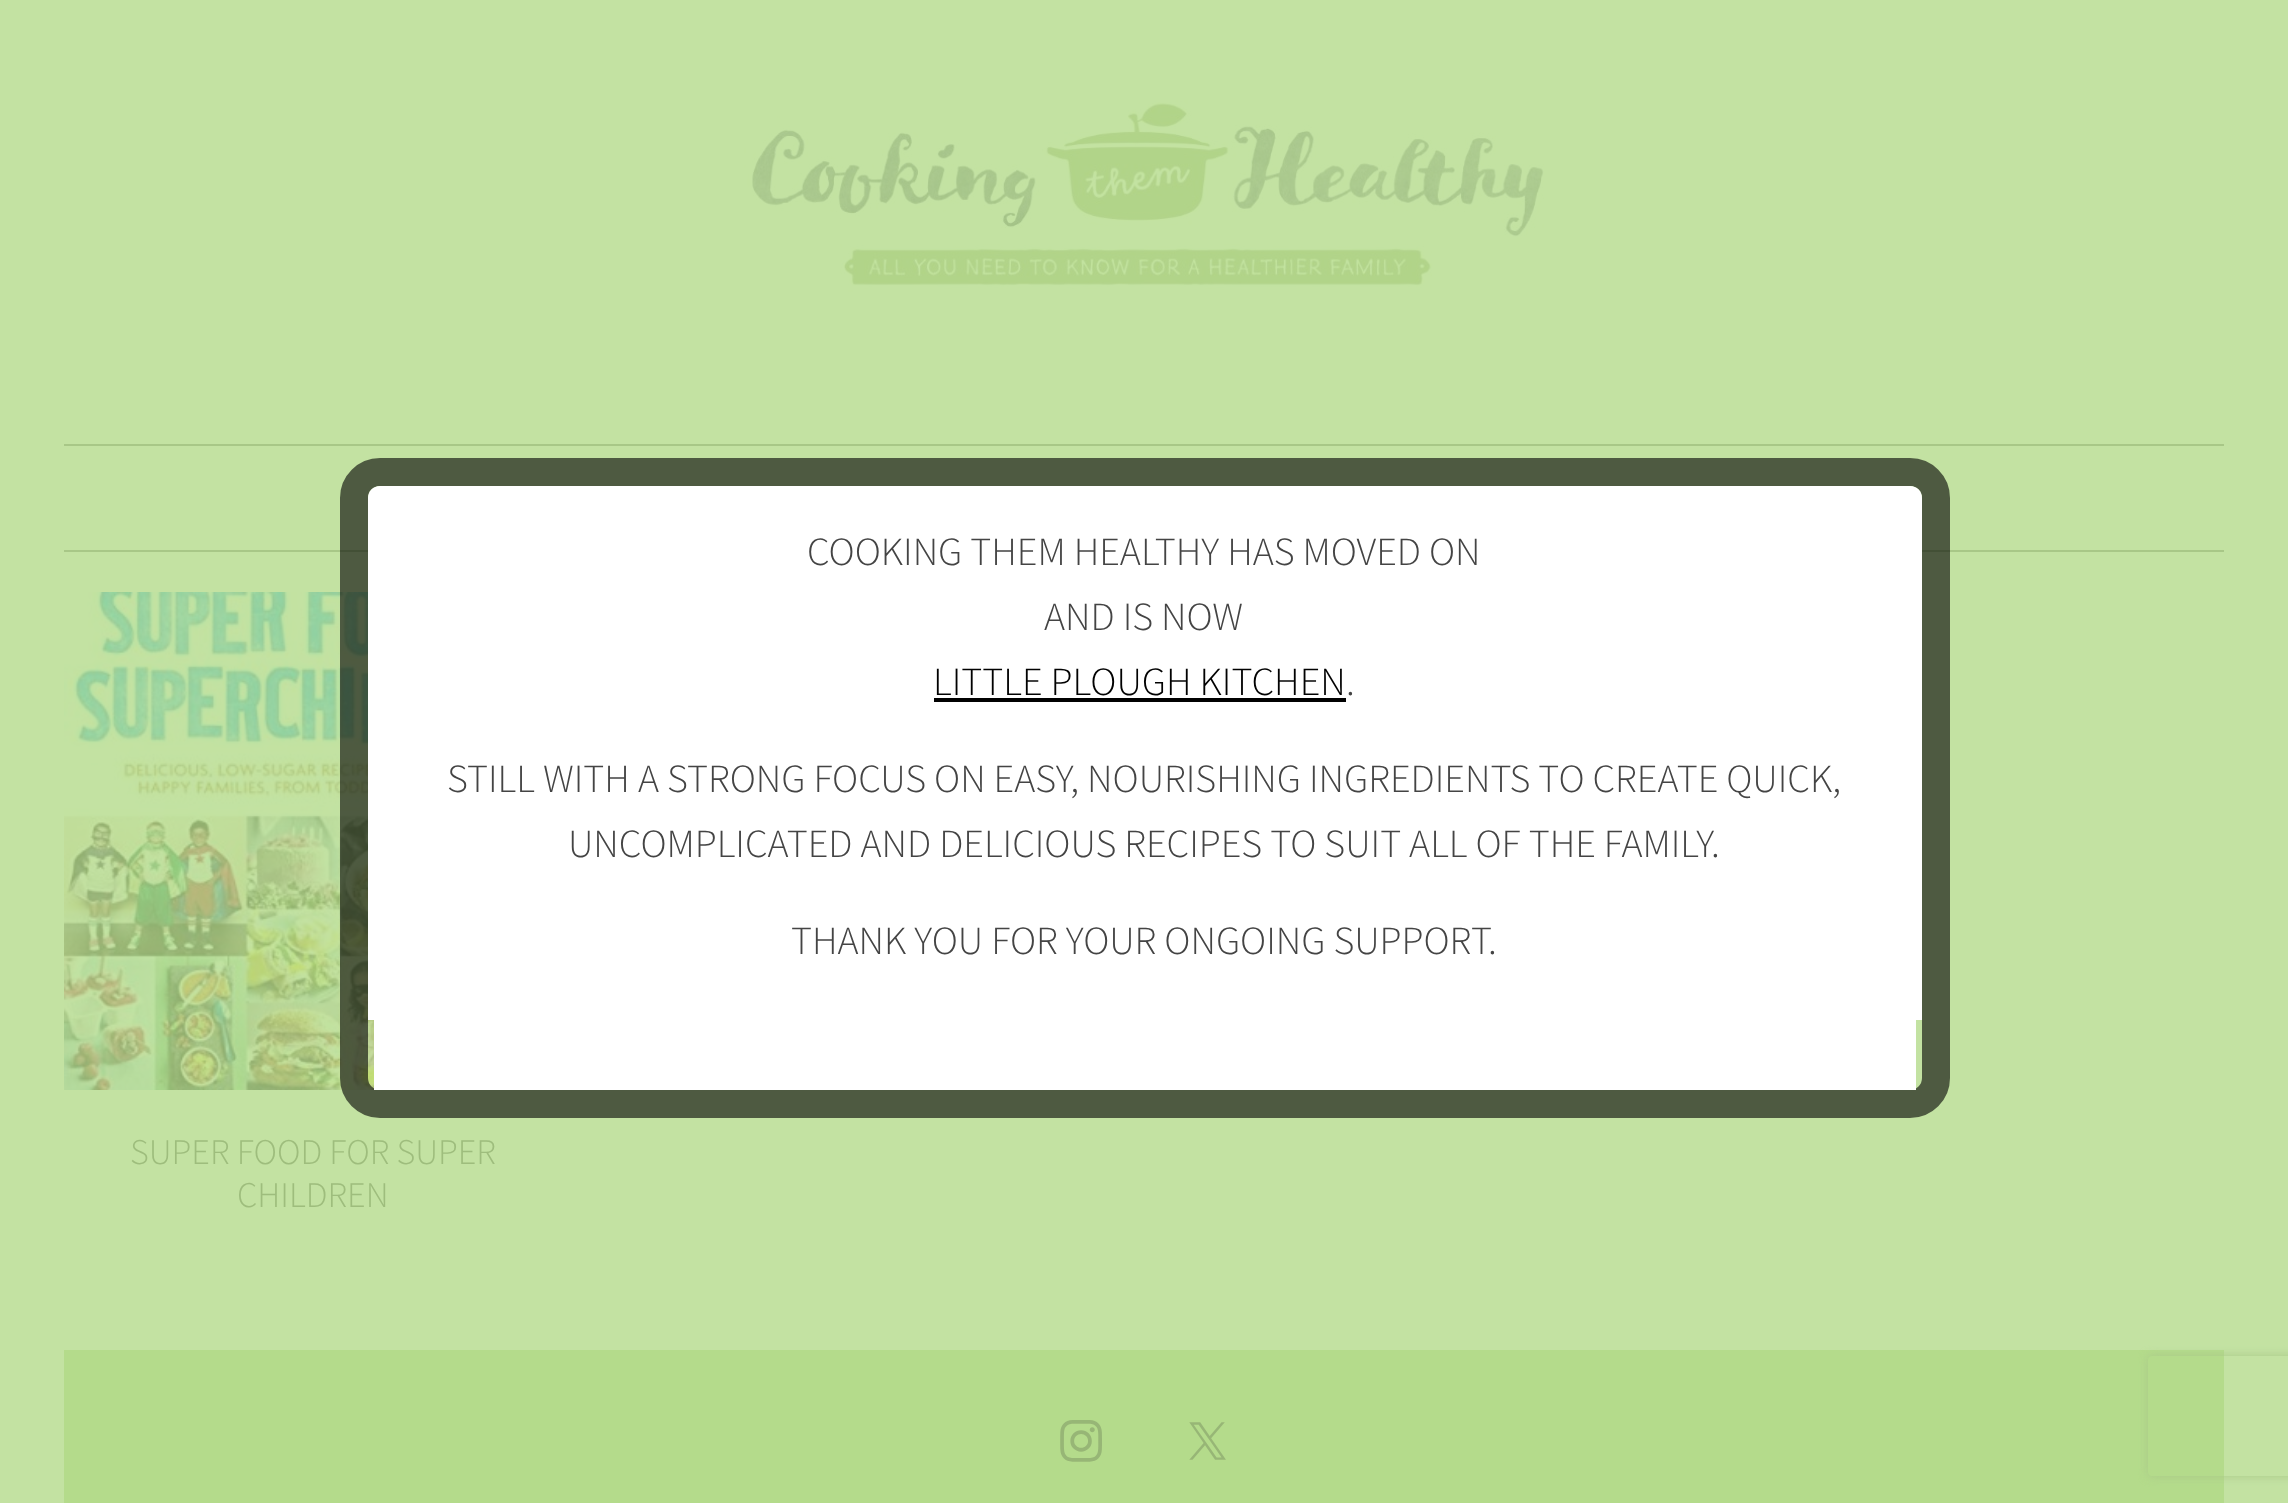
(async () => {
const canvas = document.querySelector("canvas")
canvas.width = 2288
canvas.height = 1503
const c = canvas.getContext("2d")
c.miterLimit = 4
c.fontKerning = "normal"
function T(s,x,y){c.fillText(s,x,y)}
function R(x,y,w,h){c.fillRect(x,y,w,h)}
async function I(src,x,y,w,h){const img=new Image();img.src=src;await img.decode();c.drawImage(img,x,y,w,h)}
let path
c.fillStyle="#c3e2a2"
R(0,0,2288,1503)
c.fillStyle="#a8c787"
R(64,550,2160,2)
await I("2.png",64,592,310,498)
c.beginPath()
c.roundRect(354,472,1582,632,26)
c.strokeStyle="#00000099"
c.lineWidth=28
c.stroke()
c.fillStyle="#fff"
path = new Path2D("M380 486h1530c7 0 12 5 12 12v522h-1554v-522c0-7 5-12 12-12z")
c.fill(path)
R(374,1020,1542,70)
c.font="300 40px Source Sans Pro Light"
c.fillStyle="#444"
T("COOKING THEM HEALTHY HAS MOVED ON",807,565)
T("AND IS NOW",1044,630)
c.fillStyle="#010101"
T("LITTLE PLOUGH KITCHEN",933,695)
R(934,698,412,4)
c.fillStyle="#444"
T(".",1346,695)
T("STILL WITH A STRONG FOCUS ON EASY, NOURISHING INGREDIENTS TO CREATE QUICK,",447,792)
T("UNCOMPLICATED AND DELICIOUS RECIPES TO SUIT ALL OF THE FAMILY.",568,857)
T("THANK YOU FOR YOUR ONGOING SUPPORT.",791,954)
await I("1.png",744,100,800,192)
c.fillStyle="#a8c787"
R(64,444,2160,2)
c.font="300 36px Source Sans Pro Light"
c.fillStyle="#9ebd7d"
T("SUPER FOOD FOR SUPER",130,1164)
T("CHILDREN",237,1207)
c.fillStyle="#b4db8b"
R(64,1350,2160,153)
await I("3.png",1060,1420,42,42)
await I("4.png",1189,1422,37,38)
c.save()
path = new Path2D("M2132 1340h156v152h-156zm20 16h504c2 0 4 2 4 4v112c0 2-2 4-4 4h-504c-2 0-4-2-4-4v-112c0-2 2-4 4-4z")
c.clip(path,"evenodd")
c.fillStyle="#aac989"
c.filter="blur(5px)"
c.beginPath()
c.roundRect(2148,1356,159,120,4)
c.fill()
c.filter="none"
c.restore()
})()
